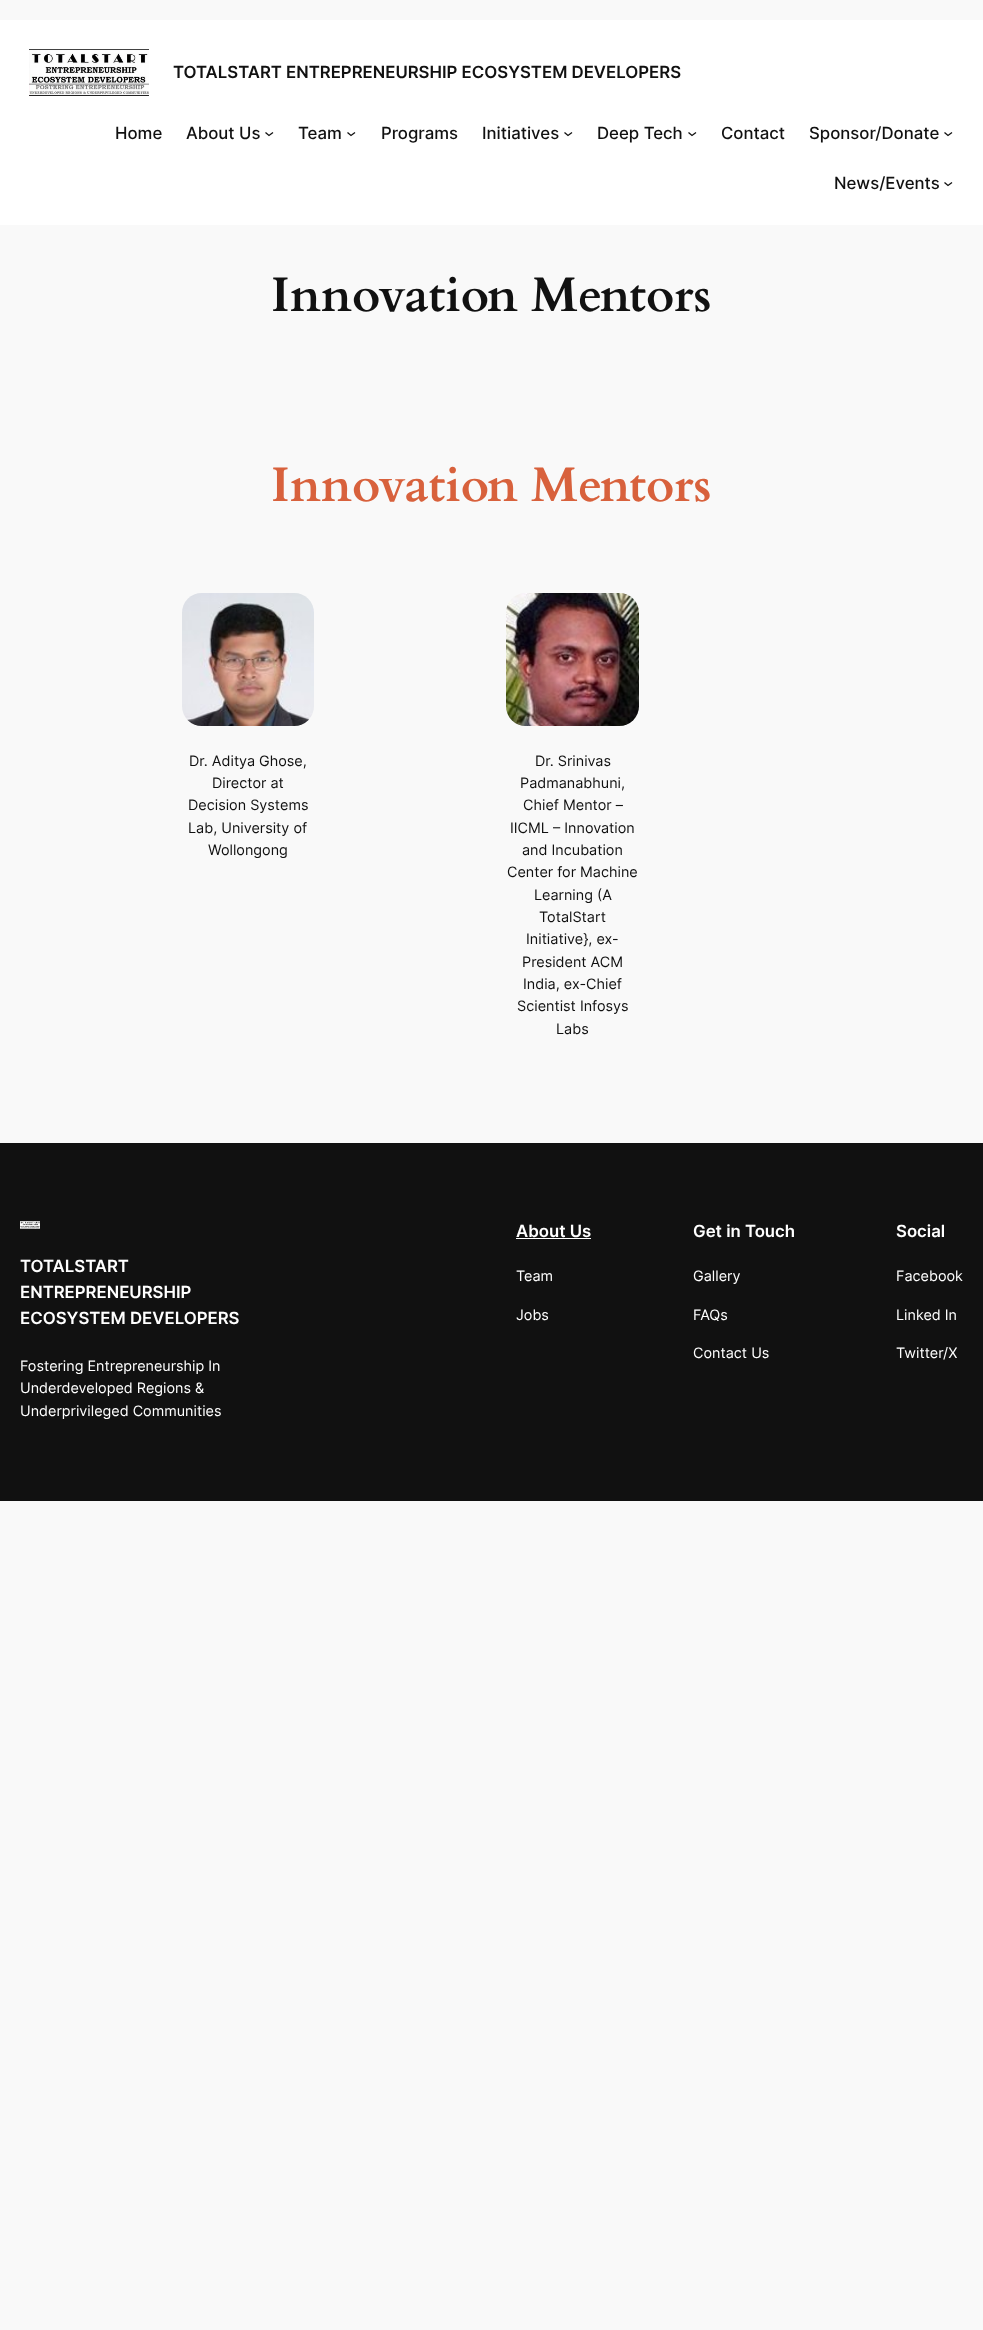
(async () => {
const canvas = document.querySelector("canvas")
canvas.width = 983
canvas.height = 2330
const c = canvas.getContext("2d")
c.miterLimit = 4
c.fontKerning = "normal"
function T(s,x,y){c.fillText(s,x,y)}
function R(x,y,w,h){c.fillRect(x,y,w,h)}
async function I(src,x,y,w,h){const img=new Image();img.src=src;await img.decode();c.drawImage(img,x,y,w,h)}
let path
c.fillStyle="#f9f9f9"
R(0,0,983,2330)
c.fillStyle="#fff"
R(0,20,983,205)
await I("1.png",29,49,120,47)
c.font="600 16.8px Inter"
c.fillStyle="#111"
T("TOTALSTART ENTREPRENEURSHIP ECOSYSTEM DEVELOPERS",173,78)
c.font="500 16.8px Inter"
T("Home",115,139)
T("About Us",186,139)
path = new Path2D("M265.5 132.5l3.5 3l4-3")
c.strokeStyle="#111"
c.lineWidth=1.3
c.stroke(path)
T("Team",298,139)
path = new Path2D("M347.5 132.5l3.5 3l4-3")
c.stroke(path)
T("Programs",381,139)
T("Initiatives",482,139)
path = new Path2D("M564.5 132.5l3.5 3l4-3")
c.stroke(path)
T("Deep Tech",597,139)
path = new Path2D("M688.5 132.5l3.5 3l4-3")
c.stroke(path)
T("Contact",721,139)
T("Sponsor/Donate",809,139)
path = new Path2D("M944.5 132.5l3.5 3l4-3m-7.5 50l3.5 3l4-3")
c.stroke(path)
T("News/Events",834,189)
c.font="bold 48.5px Cardo"
T("Innovation Mentors",271,311)
c.fillStyle="#d8613c"
T("Innovation Mentors",271,501)
await I("2.png",182,593,132,133)
c.font="14.4px Inter"
c.fillStyle="#111"
T("Dr. Aditya Ghose,",189,766)
T("Director at",212,788)
T("Decision Systems",188,810)
T("Lab, University of",188,833)
T("Wollongong",208,855)
await I("3.png",506,593,133,133)
T("Dr. Srinivas",535,766)
T("Padmanabhuni,",520,788)
T("Chief Mentor –",523,810)
T("IICML – Innovation",510,833)
T("and Incubation",522,855)
T("Center for Machine",507,877)
T("Learning (A",534,900)
T("TotalStart",539,922)
T("Initiative}, ex-",526,944)
T("President ACM",522,967)
T("India, ex-Chief",523,989)
T("Scientist Infosys",517,1011)
T("Labs",556,1034)
R(0,1143,983,358)
await I("4.png",20,1221,20,8)
c.font="600 16.8px Inter"
c.fillStyle="#fff"
T("TOTALSTART",20,1272)
T("ENTREPRENEURSHIP",20,1298)
T("ECOSYSTEM DEVELOPERS",20,1324)
c.font="14.4px Inter"
T("Fostering Entrepreneurship In",20,1371)
T("Underdeveloped Regions &",20,1393)
T("Underprivileged Communities",20,1416)
c.font="600 16.8px Inter"
T("About Us",516,1237)
R(516,1238,75,1)
c.font="14.4px Inter"
T("Team",516,1281)
T("Jobs",516,1320)
c.font="600 16.8px Inter"
T("Get in Touch",693,1237)
c.font="14.4px Inter"
T("Gallery",693,1281)
T("FAQs",693,1320)
T("Contact Us",693,1358)
c.font="600 16.8px Inter"
T("Social",896,1237)
c.font="14.4px Inter"
T("Facebook",896,1281)
T("Linked In",896,1320)
T("Twitter/X",896,1358)
})()
